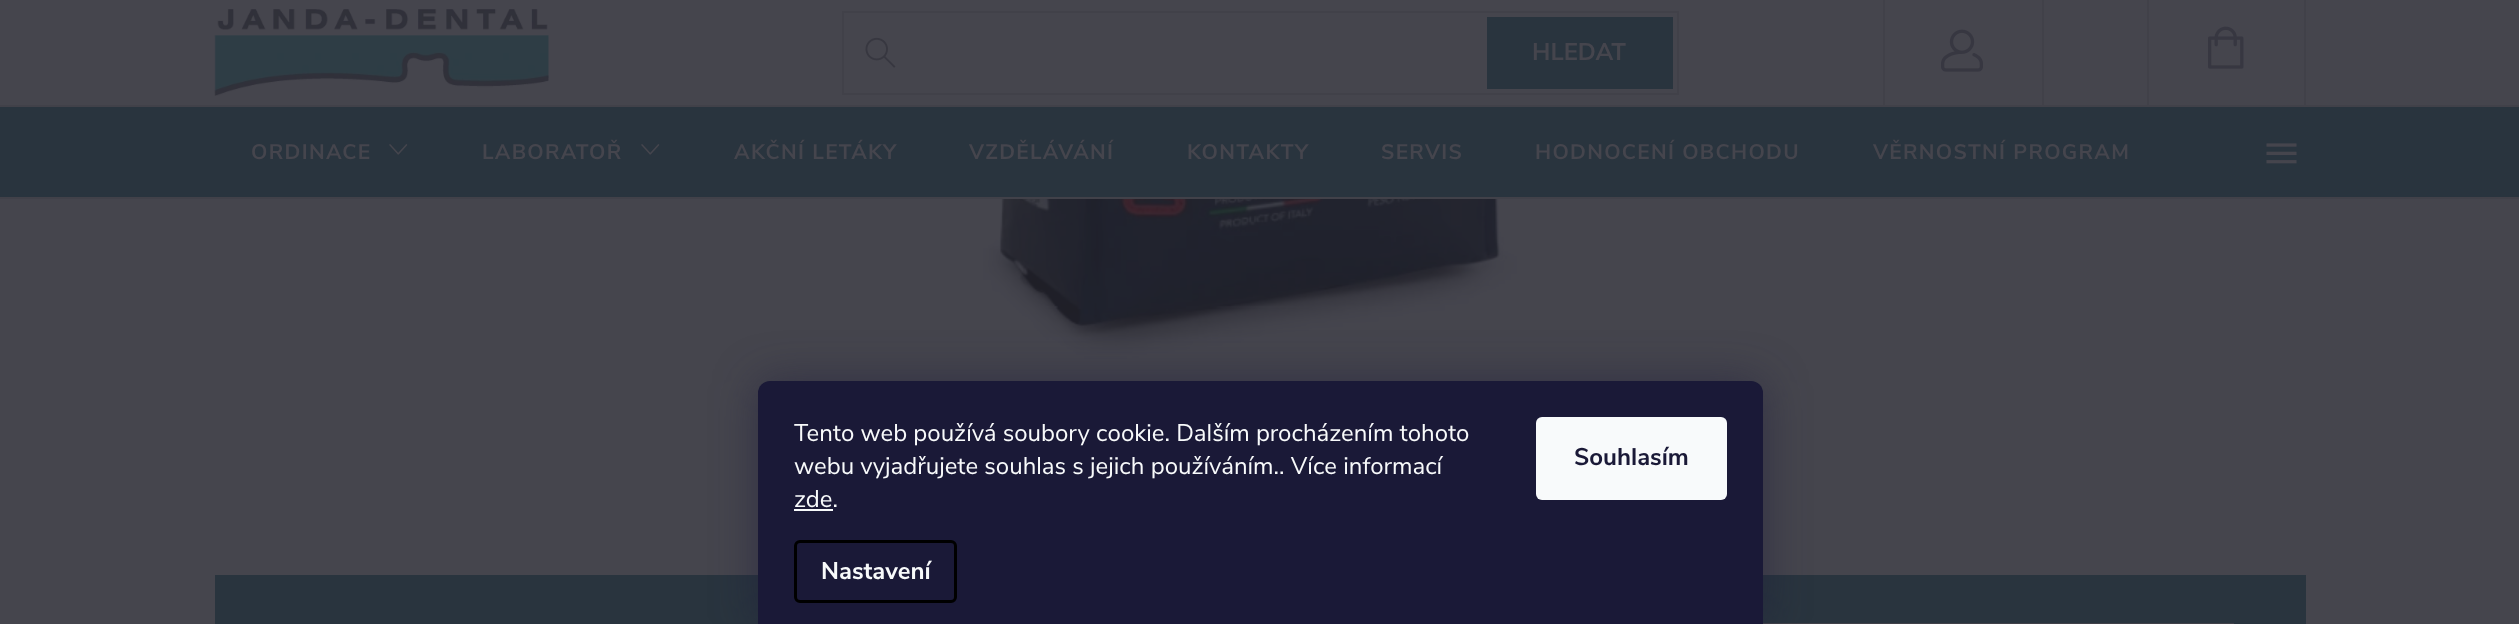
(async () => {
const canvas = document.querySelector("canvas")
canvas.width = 2519
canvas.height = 624
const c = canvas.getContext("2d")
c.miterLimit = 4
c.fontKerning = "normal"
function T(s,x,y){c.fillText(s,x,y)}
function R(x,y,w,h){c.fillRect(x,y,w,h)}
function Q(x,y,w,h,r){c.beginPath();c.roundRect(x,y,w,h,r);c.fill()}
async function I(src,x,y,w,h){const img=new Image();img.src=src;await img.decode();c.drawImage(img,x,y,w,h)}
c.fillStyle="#45454d"
R(0,0,2519,624)
await I("1.png",214,9,335,87)
c.strokeStyle="#414149"
c.lineWidth=2
c.strokeRect(843,12,835,82)
await I("2.png",865,37,31,31)
c.fillStyle="#29343e"
R(1487,17,186,72)
c.font="bold 24px Nunito Sans"
c.fillStyle="#45454d"
T("HLEDAT",1532,60)
c.fillStyle="#414149"
R(1883,0,2,105)
await I("3.png",1941,29,42,43)
R(2042,0,2,105)
R(2304,0,2,105)
R(2147,0,2,105)
await I("4.png",2208,26,36,43)
c.fillStyle="#29343e"
R(0,107,2519,90)
c.letterSpacing="1.3px"
c.font="bold 21px Nunito Sans"
c.fillStyle="#45454d"
T("ORDINACE",251,159)
await I("5.png",389,144,19,11)
T("LABORATOŘ",482,159)
await I("5.png",641,144,19,11)
T("AKČNÍ LETÁKY",734,159)
T("VZDĚLÁVÁNÍ",969,159)
T("KONTAKTY",1187,159)
T("SERVIS",1381,159)
T("HODNOCENÍ OBCHODU",1535,159)
T("VĚRNOSTNÍ PROGRAM",1873,159)
await I("6.png",2266,143,31,21)
c.fillStyle="#414149"
R(0,105,2519,2)
R(0,197,2519,2)
await I("7.png",983,199,534,160)
c.fillStyle="#29343e"
R(215,575,2091,49)
c.strokeRect(1384,624,849,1)
c.fillStyle="#1b193980"
c.filter="blur(22.5px)"
c.beginPath()
c.roundRect(758,381,1005,243,12)
c.fill()
c.filter="none"
c.fillStyle="#1a1937"
c.beginPath()
c.roundRect(758,381,1005,243,[12,12,0,0])
c.fill()
c.letterSpacing="0px"
c.font="24px Nunito Sans"
c.fillStyle="#f8fafb"
T("Tento web používá soubory cookie. Dalším procházením tohoto",794,441)
T("webu vyjadřujete souhlas s jejich používáním.. Více informací",794,474)
T("zde.",794,507)
R(794,509,39,2)
c.beginPath()
c.roundRect(795.5,541.5,160,60,4.5)
c.strokeStyle="#000"
c.lineWidth=3
c.stroke()
c.font="bold 24px Nunito Sans"
T("Nastavení",821,579)
Q(1536,417,191,83,6)
c.fillStyle="#1a1937"
T("Souhlasím",1574,465)
})()
